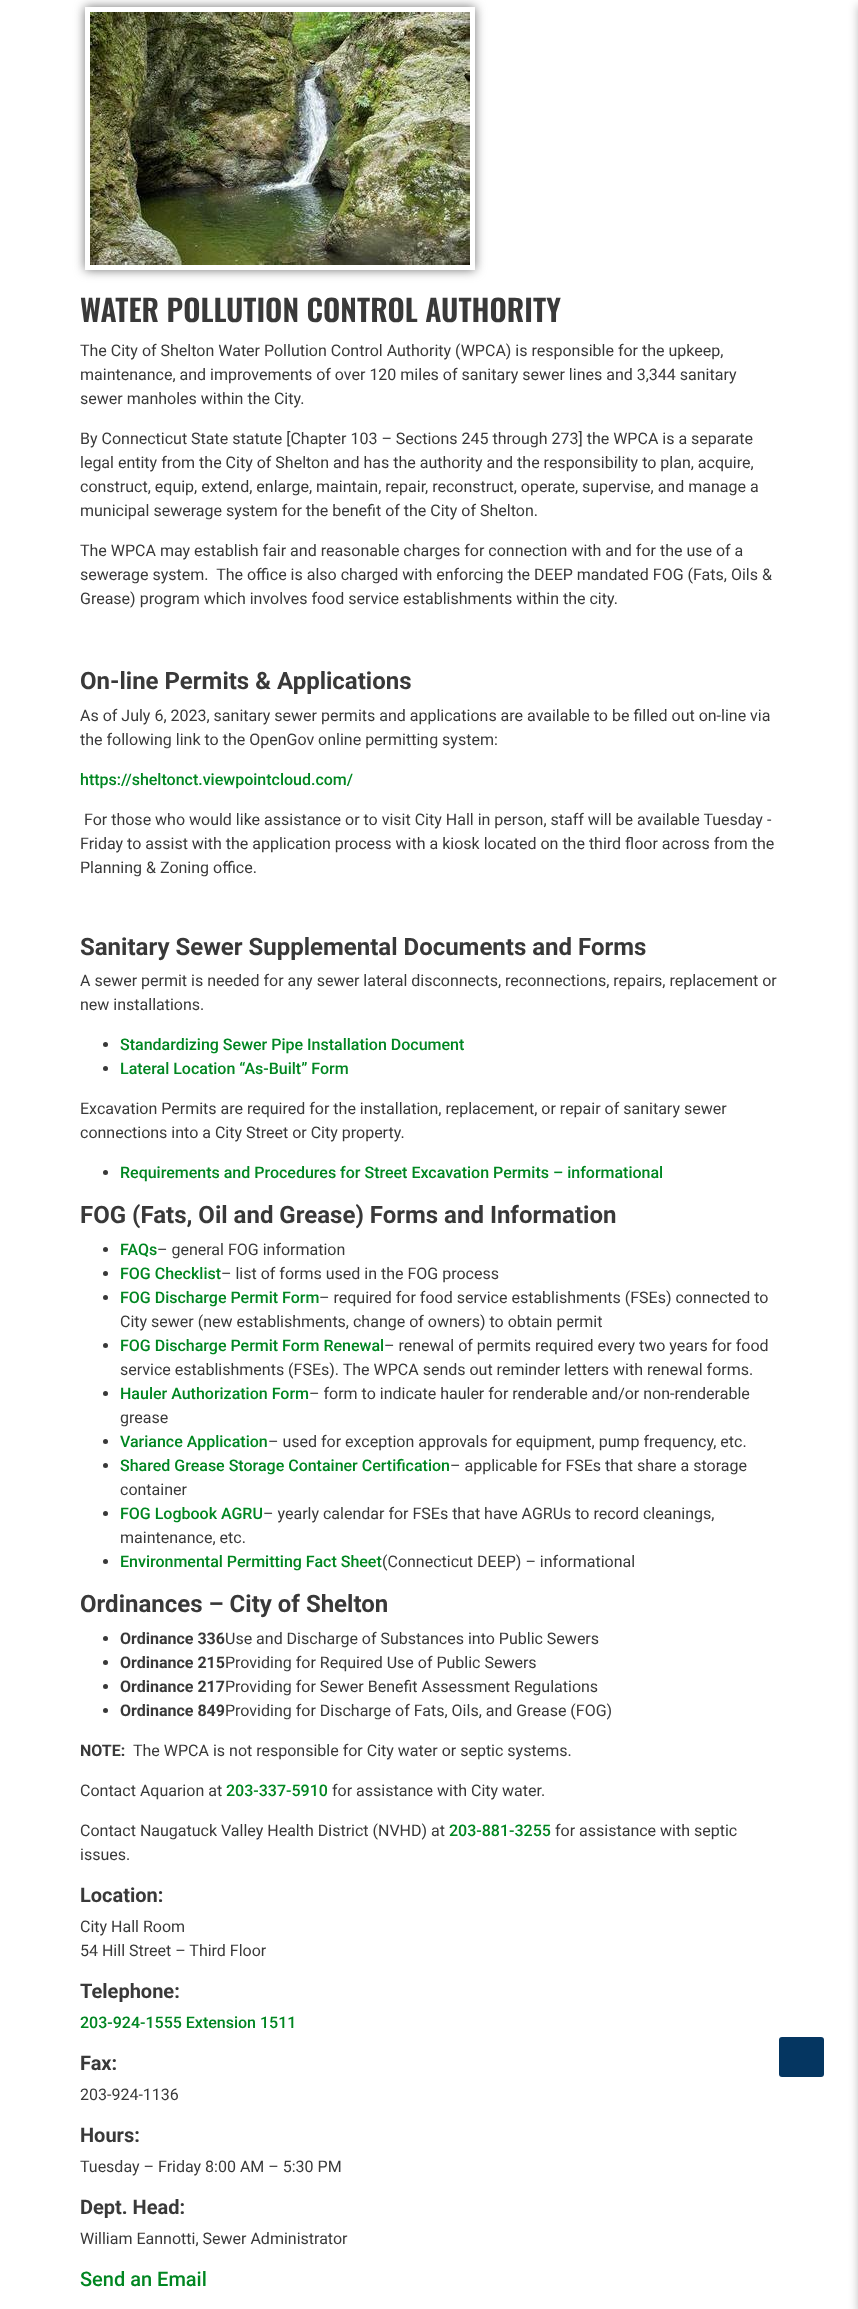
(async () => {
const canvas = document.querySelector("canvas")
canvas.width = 858
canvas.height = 2309
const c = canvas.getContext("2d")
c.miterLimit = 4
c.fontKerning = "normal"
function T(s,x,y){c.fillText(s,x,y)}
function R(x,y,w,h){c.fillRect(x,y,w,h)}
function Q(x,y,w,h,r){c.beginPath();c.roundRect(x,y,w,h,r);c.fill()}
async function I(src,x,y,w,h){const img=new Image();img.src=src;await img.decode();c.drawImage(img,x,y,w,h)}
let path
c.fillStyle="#fff"
R(0,0,858,2309)
c.fillStyle="#707070"
c.filter="blur(5.5px)"
c.beginPath()
c.roundRect(85,7,390,263,1)
c.fill()
c.filter="none"
path = new Path2D("M87.5 9.5h385v258h-385z")
c.strokeStyle="#fff"
c.lineWidth=5
c.stroke(path)
await I("1.png",90,12,380,253)
c.font="600 30px Oswald"
c.fillStyle="#393939"
T("WATER POLLUTION CONTROL AUTHORITY",80,322)
c.font="16px Roboto"
T("The City of Shelton Water Pollution Control Authority (WPCA) is responsible for the upkeep,",80,356)
T("maintenance, and improvements of over 120 miles of sanitary sewer lines and 3,344 sanitary",80,380)
T("sewer manholes within the City.",80,404)
T("By Connecticut State statute [Chapter 103 – Sections 245 through 273] the WPCA is a separate",80,444)
T("legal entity from the City of Shelton and has the authority and the responsibility to plan, acquire,",80,468)
T("construct, equip, extend, enlarge, maintain, repair, reconstruct, operate, supervise, and manage a",80,492)
T("municipal sewerage system for the benefit of the City of Shelton.",80,516)
T("The WPCA may establish fair and reasonable charges for connection with and for the use of a",80,556)
T("sewerage system.  The office is also charged with enforcing the DEEP mandated FOG (Fats, Oils &",80,580)
T("Grease) program which involves food service establishments within the city.",80,604)
c.font="bold 24px Roboto"
T("On-line Permits & Applications",80,689)
c.font="16px Roboto"
T("As of July 6, 2023, sanitary sewer permits and applications are available to be filled out on-line via",80,721)
T("the following link to the OpenGov online permitting system:",80,745)
c.font="500 16px Roboto"
c.fillStyle="#008621"
T("https://sheltonct.viewpointcloud.com/",80,785)
c.font="16px Roboto"
c.fillStyle="#393939"
T("For those who would like assistance or to visit City Hall in person, staff will be available Tuesday -",84,825)
T("Friday to assist with the application process with a kiosk located on the third floor across from the",80,849)
T("Planning & Zoning office.",80,873)
c.font="bold 24px Roboto"
T("Sanitary Sewer Supplemental Documents and Forms",80,955)
c.font="16px Roboto"
T("A sewer permit is needed for any sewer lateral disconnects, reconnections, repairs, replacement or",80,986)
T("new installations.",80,1010)
c.beginPath()
c.arc(105.5,1044.5,2.5,0,7)
c.fill()
c.font="500 16px Roboto"
c.fillStyle="#008621"
T("Standardizing Sewer Pipe Installation Document",120,1050)
c.fillStyle="#393939"
c.beginPath()
c.arc(105.5,1068.5,2.5,0,7)
c.fill()
c.fillStyle="#008621"
T("Lateral Location “As-Built” Form",120,1074)
c.font="16px Roboto"
c.fillStyle="#393939"
T("Excavation Permits are required for the installation, replacement, or repair of sanitary sewer",80,1114)
T("connections into a City Street or City property.",80,1138)
c.beginPath()
c.arc(105.5,1172.5,2.5,0,7)
c.fill()
c.font="500 16px Roboto"
c.fillStyle="#008621"
T("Requirements and Procedures for Street Excavation Permits – informational",120,1178)
c.font="bold 24px Roboto"
c.fillStyle="#393939"
T("FOG (Fats, Oil and Grease) Forms and Information",80,1223)
c.beginPath()
c.arc(105.5,1249.5,2.5,0,7)
c.fill()
c.font="500 16px Roboto"
c.fillStyle="#008621"
T("FAQs",120,1255)
c.font="16px Roboto"
c.fillStyle="#393939"
T("– general FOG information",157,1255)
c.beginPath()
c.arc(105.5,1273.5,2.5,0,7)
c.fill()
c.font="500 16px Roboto"
c.fillStyle="#008621"
T("FOG Checklist",120,1279)
c.font="16px Roboto"
c.fillStyle="#393939"
T("– list of forms used in the FOG process",221,1279)
c.beginPath()
c.arc(105.5,1297.5,2.5,0,7)
c.fill()
c.font="500 16px Roboto"
c.fillStyle="#008621"
T("FOG Discharge Permit Form",120,1303)
c.font="16px Roboto"
c.fillStyle="#393939"
T("– required for food service establishments (FSEs) connected to",319,1303)
T("City sewer (new establishments, change of owners) to obtain permit",120,1327)
c.beginPath()
c.arc(105.5,1345.5,2.5,0,7)
c.fill()
c.font="500 16px Roboto"
c.fillStyle="#008621"
T("FOG Discharge Permit Form Renewal",120,1351)
c.font="16px Roboto"
c.fillStyle="#393939"
T("– renewal of permits required every two years for food",384,1351)
T("service establishments (FSEs). The WPCA sends out reminder letters with renewal forms.",120,1375)
c.beginPath()
c.arc(105.5,1393.5,2.5,0,7)
c.fill()
c.font="500 16px Roboto"
c.fillStyle="#008621"
T("Hauler Authorization Form",120,1399)
c.font="16px Roboto"
c.fillStyle="#393939"
T("– form to indicate hauler for renderable and/or non-renderable",309,1399)
T("grease",120,1423)
c.beginPath()
c.arc(105.5,1441.5,2.5,0,7)
c.fill()
c.font="500 16px Roboto"
c.fillStyle="#008621"
T("Variance Application",120,1447)
c.font="16px Roboto"
c.fillStyle="#393939"
T("– used for exception approvals for equipment, pump frequency, etc.",268,1447)
c.beginPath()
c.arc(105.5,1465.5,2.5,0,7)
c.fill()
c.font="500 16px Roboto"
c.fillStyle="#008621"
T("Shared Grease Storage Container Certification",120,1471)
c.font="16px Roboto"
c.fillStyle="#393939"
T("– applicable for FSEs that share a storage",450,1471)
T("container",120,1495)
c.beginPath()
c.arc(105.5,1513.5,2.5,0,7)
c.fill()
c.font="500 16px Roboto"
c.fillStyle="#008621"
T("FOG Logbook AGRU",120,1519)
c.font="16px Roboto"
c.fillStyle="#393939"
T("– yearly calendar for FSEs that have AGRUs to record cleanings,",263,1519)
T("maintenance, etc.",120,1543)
c.beginPath()
c.arc(105.5,1561.5,2.5,0,7)
c.fill()
c.font="500 16px Roboto"
c.fillStyle="#008621"
T("Environmental Permitting Fact Sheet",120,1567)
c.font="16px Roboto"
c.fillStyle="#393939"
T("(Connecticut DEEP) – informational",382,1567)
c.font="bold 24px Roboto"
T("Ordinances – City of Shelton",80,1612)
c.beginPath()
c.arc(105.5,1638.5,2.5,0,7)
c.fill()
c.font="bold 16px Roboto"
T("Ordinance 336",120,1644)
c.font="16px Roboto"
T("Use and Discharge of Substances into Public Sewers",225,1644)
c.beginPath()
c.arc(105.5,1662.5,2.5,0,7)
c.fill()
c.font="bold 16px Roboto"
T("Ordinance 215",120,1668)
c.font="16px Roboto"
T("Providing for Required Use of Public Sewers",225,1668)
c.beginPath()
c.arc(105.5,1686.5,2.5,0,7)
c.fill()
c.font="bold 16px Roboto"
T("Ordinance 217",120,1692)
c.font="16px Roboto"
T("Providing for Sewer Benefit Assessment Regulations",225,1692)
c.beginPath()
c.arc(105.5,1710.5,2.5,0,7)
c.fill()
c.font="bold 16px Roboto"
T("Ordinance 849",120,1716)
c.font="16px Roboto"
T("Providing for Discharge of Fats, Oils, and Grease (FOG)",225,1716)
c.font="bold 16px Roboto"
T("NOTE:",80,1756)
c.font="16px Roboto"
T("The WPCA is not responsible for City water or septic systems.",133,1756)
T("Contact Aquarion at",80,1796)
c.font="500 16px Roboto"
c.fillStyle="#008621"
T("203-337-5910",226,1796)
c.font="16px Roboto"
c.fillStyle="#393939"
T("for assistance with City water.",332,1796)
T("Contact Naugatuck Valley Health District (NVHD) at",80,1836)
c.font="500 16px Roboto"
c.fillStyle="#008621"
T("203-881-3255",449,1836)
c.font="16px Roboto"
c.fillStyle="#393939"
T("for assistance with septic",555,1836)
T("issues.",80,1860)
c.font="bold 20px Roboto"
T("Location:",80,1902)
c.font="16px Roboto"
T("City Hall Room",80,1932)
T("54 Hill Street – Third Floor",80,1956)
c.font="bold 20px Roboto"
T("Telephone:",80,1998)
c.font="500 16px Roboto"
c.fillStyle="#008621"
T("203-924-1555 Extension 1511",80,2028)
c.font="bold 20px Roboto"
c.fillStyle="#393939"
T("Fax:",80,2070)
c.font="16px Roboto"
T("203-924-1136",80,2100)
c.font="bold 20px Roboto"
T("Hours:",80,2142)
c.font="16px Roboto"
T("Tuesday – Friday 8:00 AM – 5:30 PM",80,2172)
c.font="bold 20px Roboto"
T("Dept. Head:",80,2214)
c.font="16px Roboto"
T("William Eannotti, Sewer Administrator",80,2244)
c.font="500 20px Roboto"
c.fillStyle="#008621"
T("Send an Email",80,2286)
c.fillStyle="#053661"
Q(779,2037,45,40,3)
c.fillStyle="#00000040"
c.filter="blur(5px)"
c.beginPath()
c.rect(858,5,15,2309)
c.fill()
c.filter="none"
})()
